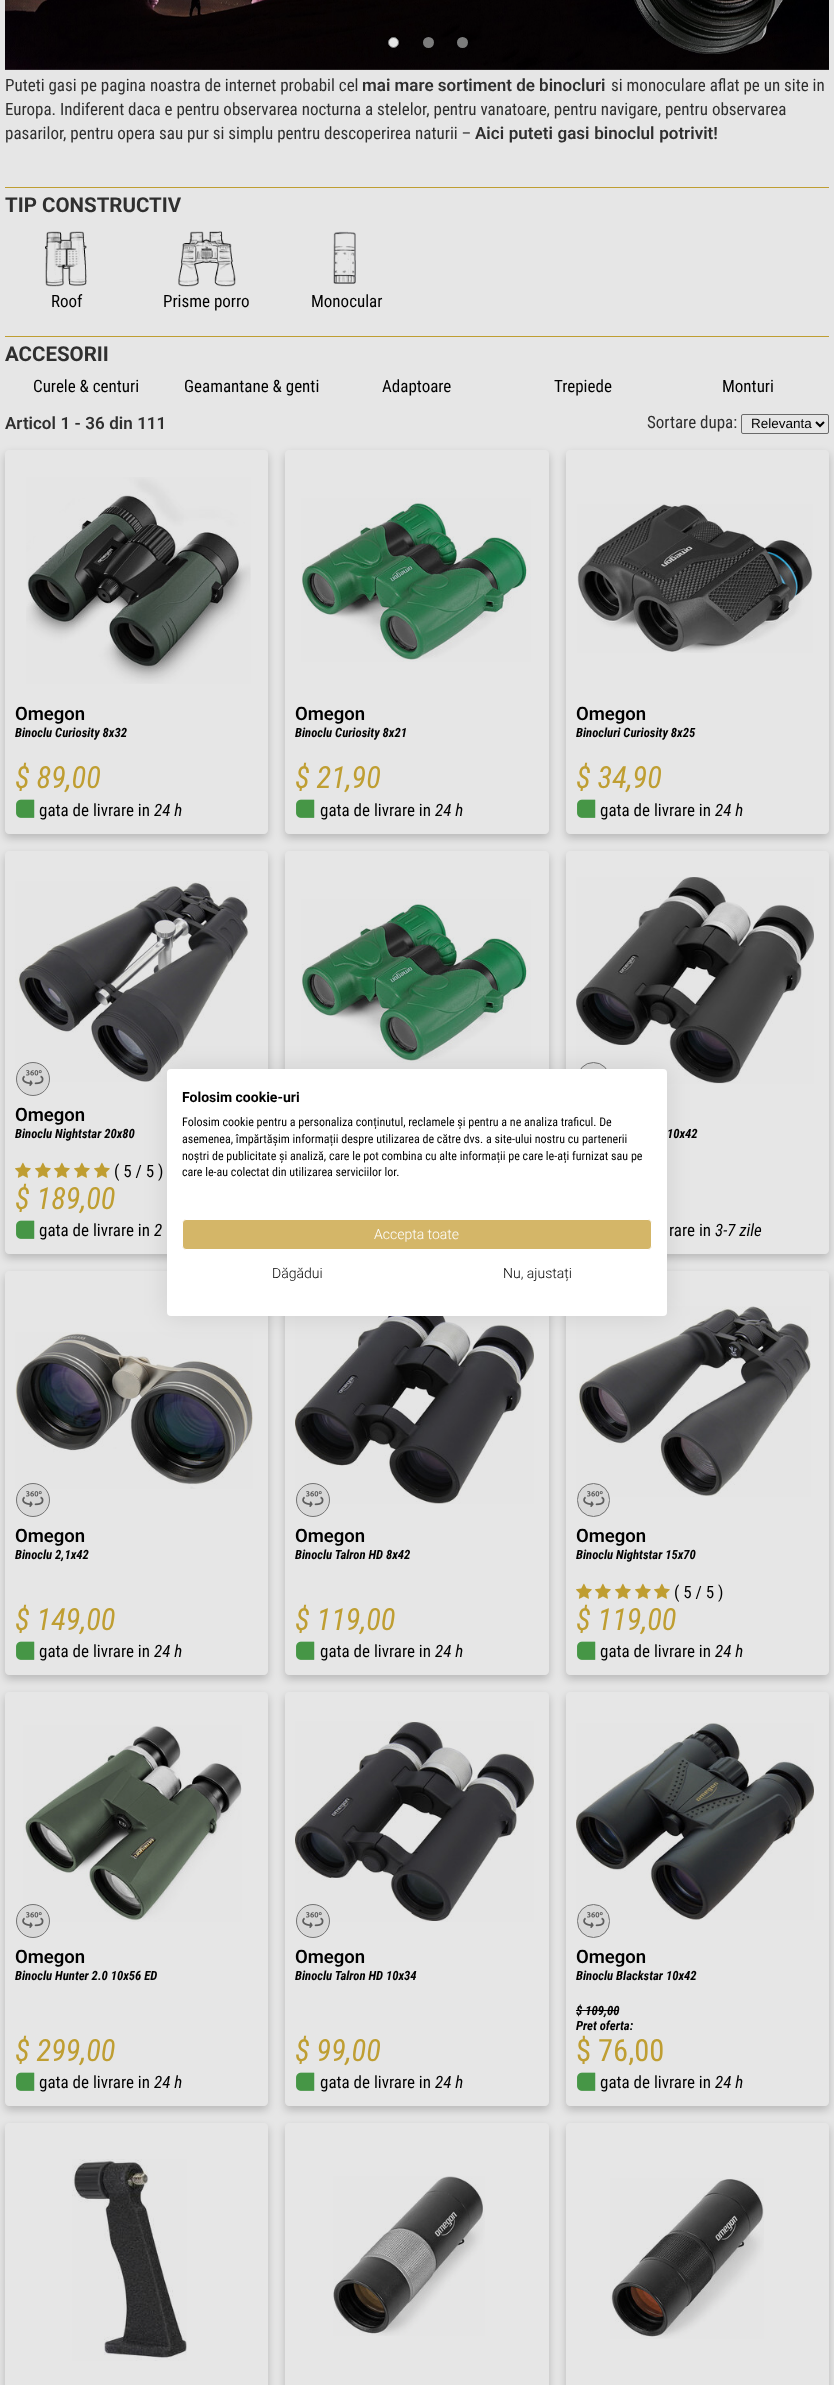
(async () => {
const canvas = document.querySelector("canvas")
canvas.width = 834
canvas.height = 2385
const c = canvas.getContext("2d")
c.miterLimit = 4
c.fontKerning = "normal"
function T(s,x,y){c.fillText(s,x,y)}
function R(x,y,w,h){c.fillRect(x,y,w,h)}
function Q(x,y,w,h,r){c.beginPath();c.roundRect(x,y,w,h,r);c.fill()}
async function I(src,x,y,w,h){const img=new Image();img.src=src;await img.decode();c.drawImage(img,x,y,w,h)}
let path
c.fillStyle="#e6e6e6"
R(0,0,834,2385)
await I("1.png",5,0,824,70)
c.beginPath()
c.arc(393.5,42.5,5,0,7)
c.fill()
c.strokeStyle="#7c7c7c"
c.stroke()
c.fillStyle="#7c7c7c"
c.beginPath()
c.arc(428.5,42.5,5.5,0,7)
c.fill()
c.beginPath()
c.arc(462.5,42.5,5.5,0,7)
c.fill()
c.font="17px Roboto Condensed"
c.fillStyle="#2f2f2f"
T("Puteti gasi pe pagina noastra de internet probabil cel",5,91)
c.font="600 17px Roboto"
T("mai mare sortiment de binocluri",362,91)
c.font="17px Roboto Condensed"
T("si monoculare aflat pe un site in",611,91)
T("Europa. Indiferent daca e pentru observarea nocturna a stelelor, pentru vanatoare, pentru navigare, pentru observarea",5,115)
T("pasarilor, pentru opera sau pur si simplu pentru descoperirea naturii –",5,139)
c.wordSpacing="0.5px"
c.font="600 17px Roboto"
T("Aici puteti gasi binoclul potrivit!",475,139)
c.fillStyle="#bf9e32"
R(5,187,824,1)
c.wordSpacing="0px"
c.font="bold 20.5px Roboto"
c.fillStyle="#2f2f2f"
T("TIP CONSTRUCTIV",5,212)
await I("2.png",45,231,42,56)
c.font="17px Roboto Condensed"
c.fillStyle="#000"
T("Roof",51,307)
await I("3.png",178,231,58,56)
T("Prisme porro",163,307)
await I("4.png",333,231,23,53)
T("Monocular",311,307)
c.fillStyle="#bf9e32"
R(5,336,824,1)
c.font="bold 20.5px Roboto"
c.fillStyle="#2f2f2f"
T("ACCESORII",5,361)
c.font="17px Roboto Condensed"
c.fillStyle="#000"
T("Curele & centuri",33,392)
T("Geamantane & genti",184,392)
T("Adaptoare",382,392)
T("Trepiede",554,392)
T("Monturi",722,392)
c.wordSpacing="0.25px"
c.font="600 17px Roboto"
c.fillStyle="#2f2f2f"
T("Articol 1 - 36 din 111",5,429)
c.wordSpacing="0px"
c.font="17px Roboto Condensed"
T("Sortare dupa:",647,428)
c.beginPath()
c.roundRect(741.5,414.5,87,19,1.5)
c.strokeStyle="#6a6a6a"
c.stroke()
path = new Path2D("M816 422l4 4l4-4")
c.strokeStyle="#000"
c.lineWidth=2
c.stroke(path)
c.font="13.5px Liberation Sans"
c.fillStyle="#000"
T("Relevanta",751,428)
c.save()
path = new Path2D("M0 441h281v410h-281zm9 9h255c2 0 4 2 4 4v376c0 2-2 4-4 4h-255c-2 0-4-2-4-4v-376c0-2 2-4 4-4z")
c.clip(path,"evenodd")
c.fillStyle="#00000033"
c.filter="blur(4px)"
c.beginPath()
c.roundRect(5,454,263,384,4)
c.fill()
c.filter="none"
c.restore()
await I("5.png",26,477,225,207)
c.font="600 18.5px Roboto"
T("Omegon",15,720)
c.font="italic bold 12.75px Roboto Condensed"
T("Binoclu Curiosity 8x32",15,737)
c.font="italic 30.5px Roboto Condensed"
c.fillStyle="#bf9e32"
T("$ 89,00",15,788)
await I("6.png",16,799,19,19)
c.font="17px Roboto Condensed"
c.fillStyle="#000"
T("gata de livrare in",39,816)
c.font="italic 17px Roboto Condensed"
T("24 h",154,816)
c.save()
path = new Path2D("M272 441h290v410h-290zm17 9h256c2 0 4 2 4 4v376c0 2-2 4-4 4h-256c-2 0-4-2-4-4v-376c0-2 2-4 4-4z")
c.clip(path,"evenodd")
c.fillStyle="#00000033"
c.filter="blur(4px)"
c.beginPath()
c.roundRect(285,454,264,384,4)
c.fill()
c.filter="none"
c.restore()
await I("7.png",301,498,230,164)
c.font="600 18.5px Roboto"
T("Omegon",295,720)
c.font="italic bold 12.75px Roboto Condensed"
T("Binoclu Curiosity 8x21",295,737)
c.font="italic 30.5px Roboto Condensed"
c.fillStyle="#bf9e32"
T("$ 21,90",295,788)
await I("6.png",296,799,19,19)
c.font="17px Roboto Condensed"
c.fillStyle="#000"
T("gata de livrare in",320,816)
c.font="italic 17px Roboto Condensed"
T("24 h",435,816)
c.save()
path = new Path2D("M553 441h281v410h-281zm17 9h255c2 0 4 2 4 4v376c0 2-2 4-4 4h-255c-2 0-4-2-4-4v-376c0-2 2-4 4-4z")
c.clip(path,"evenodd")
c.fillStyle="#00000033"
c.filter="blur(4px)"
c.beginPath()
c.roundRect(566,454,263,384,4)
c.fill()
c.filter="none"
c.restore()
await I("8.png",577,504,236,149)
c.font="600 18.5px Roboto"
T("Omegon",576,720)
c.font="italic bold 12.75px Roboto Condensed"
T("Binocluri Curiosity 8x25",576,737)
c.font="italic 30.5px Roboto Condensed"
c.fillStyle="#bf9e32"
T("$ 34,90",576,788)
await I("6.png",577,799,19,19)
c.font="17px Roboto Condensed"
c.fillStyle="#000"
T("gata de livrare in",600,816)
c.font="italic 17px Roboto Condensed"
T("24 h",715,816)
c.save()
path = new Path2D("M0 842h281v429h-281zm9 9h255c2 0 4 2 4 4v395c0 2-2 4-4 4h-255c-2 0-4-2-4-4v-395c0-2 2-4 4-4z")
c.clip(path,"evenodd")
c.fillStyle="#00000033"
c.filter="blur(4px)"
c.beginPath()
c.roundRect(5,855,263,403,4)
c.fill()
c.filter="none"
c.restore()
await I("9.png",15,881,235,201)
c.fillStyle="#d8d8d8"
c.beginPath()
c.arc(33,1079,16.5,0,7)
c.fill()
c.strokeStyle="#737373"
c.lineWidth=1
c.stroke()
await I("10.png",22,1070,22,16)
c.font="600 18.5px Roboto"
c.fillStyle="#000"
T("Omegon",15,1121)
c.font="italic bold 12.75px Roboto Condensed"
T("Binoclu Nightstar 20x80",15,1138)
await I("11.png",15,1162,16,16)
await I("11.png",35,1162,16,16)
await I("11.png",54,1162,16,16)
await I("11.png",74,1162,16,16)
await I("11.png",94,1162,16,16)
c.font="17px Roboto Condensed"
T("( 5 / 5 )",114,1177)
c.font="italic 30.5px Roboto Condensed"
c.fillStyle="#bf9e32"
T("$ 189,00",15,1209)
await I("6.png",16,1220,19,19)
c.font="17px Roboto Condensed"
c.fillStyle="#000"
T("gata de livrare in",39,1236)
c.font="italic 17px Roboto Condensed"
T("2",154,1236)
c.save()
path = new Path2D("M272 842h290v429h-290zm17 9h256c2 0 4 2 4 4v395c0 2-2 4-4 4h-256c-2 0-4-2-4-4v-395c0-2 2-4 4-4z")
c.clip(path,"evenodd")
c.fillStyle="#00000033"
c.filter="blur(4px)"
c.beginPath()
c.roundRect(285,855,264,403,4)
c.fill()
c.filter="none"
c.restore()
await I("12.png",301,899,230,164)
c.save()
path = new Path2D("M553 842h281v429h-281zm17 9h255c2 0 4 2 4 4v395c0 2-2 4-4 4h-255c-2 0-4-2-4-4v-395c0-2 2-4 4-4z")
c.clip(path,"evenodd")
c.fillStyle="#00000033"
c.filter="blur(4px)"
c.beginPath()
c.roundRect(566,855,263,403,4)
c.fill()
c.filter="none"
c.restore()
await I("13.png",576,877,238,207)
c.fillStyle="#d8d8d8"
c.beginPath()
c.roundRect(577.5,1062.5,32,33,16)
c.fill()
c.stroke()
c.font="italic bold 12.75px Roboto Condensed"
c.fillStyle="#000"
T("10x42",667,1138)
c.font="17px Roboto Condensed"
T("rare in",669,1236)
c.font="italic 17px Roboto Condensed"
T("3-7 zile",715,1236)
c.save()
path = new Path2D("M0 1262h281v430h-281zm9 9h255c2 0 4 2 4 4v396c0 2-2 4-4 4h-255c-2 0-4-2-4-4v-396c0-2 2-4 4-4z")
c.clip(path,"evenodd")
c.fillStyle="#00000033"
c.filter="blur(4px)"
c.beginPath()
c.roundRect(5,1275,263,404,4)
c.fill()
c.filter="none"
c.restore()
await I("14.png",15,1332,238,157)
c.fillStyle="#d8d8d8"
c.beginPath()
c.arc(33,1500,16.5,0,7)
c.fill()
c.stroke()
await I("10.png",22,1491,22,16)
c.font="600 18.5px Roboto"
c.fillStyle="#000"
T("Omegon",15,1542)
c.font="italic bold 12.75px Roboto Condensed"
T("Binoclu 2,1x42",15,1559)
c.font="italic 30.5px Roboto Condensed"
c.fillStyle="#bf9e32"
T("$ 149,00",15,1630)
await I("6.png",16,1641,19,19)
c.font="17px Roboto Condensed"
c.fillStyle="#000"
T("gata de livrare in",39,1657)
c.font="italic 17px Roboto Condensed"
T("24 h",154,1657)
c.save()
path = new Path2D("M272 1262h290v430h-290zm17 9h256c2 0 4 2 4 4v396c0 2-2 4-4 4h-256c-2 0-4-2-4-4v-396c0-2 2-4 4-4z")
c.clip(path,"evenodd")
c.fillStyle="#00000033"
c.filter="blur(4px)"
c.beginPath()
c.roundRect(285,1275,264,404,4)
c.fill()
c.filter="none"
c.restore()
await I("15.png",295,1316,239,188)
c.fillStyle="#d8d8d8"
c.beginPath()
c.arc(313,1500,16.5,0,7)
c.fill()
c.stroke()
await I("10.png",302,1491,22,16)
c.font="600 18.5px Roboto"
c.fillStyle="#000"
T("Omegon",295,1542)
c.font="italic bold 12.75px Roboto Condensed"
T("Binoclu Talron HD 8x42",295,1559)
c.font="italic 30.5px Roboto Condensed"
c.fillStyle="#bf9e32"
T("$ 119,00",295,1630)
await I("6.png",296,1641,19,19)
c.font="17px Roboto Condensed"
c.fillStyle="#000"
T("gata de livrare in",320,1657)
c.font="italic 17px Roboto Condensed"
T("24 h",435,1657)
c.save()
path = new Path2D("M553 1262h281v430h-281zm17 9h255c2 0 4 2 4 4v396c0 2-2 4-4 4h-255c-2 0-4-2-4-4v-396c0-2 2-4 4-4z")
c.clip(path,"evenodd")
c.fillStyle="#00000033"
c.filter="blur(4px)"
c.beginPath()
c.roundRect(566,1275,263,404,4)
c.fill()
c.filter="none"
c.restore()
await I("16.png",576,1306,235,191)
c.fillStyle="#d8d8d8"
c.beginPath()
c.roundRect(577.5,1483.5,32,33,16)
c.fill()
c.stroke()
await I("10.png",583,1491,22,16)
c.font="600 18.5px Roboto"
c.fillStyle="#000"
T("Omegon",576,1542)
c.font="italic bold 12.75px Roboto Condensed"
T("Binoclu Nightstar 15x70",576,1559)
await I("11.png",576,1583,16,16)
await I("11.png",595,1583,16,16)
await I("11.png",615,1583,16,16)
await I("11.png",635,1583,16,16)
await I("11.png",654,1583,16,16)
c.font="17px Roboto Condensed"
T("( 5 / 5 )",674,1598)
c.font="italic 30.5px Roboto Condensed"
c.fillStyle="#bf9e32"
T("$ 119,00",576,1630)
await I("6.png",577,1641,19,19)
c.font="17px Roboto Condensed"
c.fillStyle="#000"
T("gata de livrare in",600,1657)
c.font="italic 17px Roboto Condensed"
T("24 h",715,1657)
c.save()
path = new Path2D("M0 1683h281v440h-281zm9 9h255c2 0 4 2 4 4v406c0 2-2 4-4 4h-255c-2 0-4-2-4-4v-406c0-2 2-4 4-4z")
c.clip(path,"evenodd")
c.fillStyle="#00000033"
c.filter="blur(4px)"
c.beginPath()
c.roundRect(5,1696,263,414,4)
c.fill()
c.filter="none"
c.restore()
await I("17.png",23,1725,219,197)
c.fillStyle="#d8d8d8"
c.beginPath()
c.arc(33,1921,16.5,0,7)
c.fill()
c.stroke()
await I("10.png",22,1912,22,16)
c.font="600 18.5px Roboto"
c.fillStyle="#000"
T("Omegon",15,1963)
c.font="italic bold 12.75px Roboto Condensed"
T("Binoclu Hunter 2.0 10x56 ED",15,1980)
c.font="italic 30.5px Roboto Condensed"
c.fillStyle="#bf9e32"
T("$ 299,00",15,2061)
await I("6.png",16,2072,19,19)
c.font="17px Roboto Condensed"
c.fillStyle="#000"
T("gata de livrare in",39,2088)
c.font="italic 17px Roboto Condensed"
T("24 h",154,2088)
c.save()
path = new Path2D("M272 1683h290v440h-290zm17 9h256c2 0 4 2 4 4v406c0 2-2 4-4 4h-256c-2 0-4-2-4-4v-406c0-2 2-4 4-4z")
c.clip(path,"evenodd")
c.fillStyle="#00000033"
c.filter="blur(4px)"
c.beginPath()
c.roundRect(285,1696,264,414,4)
c.fill()
c.filter="none"
c.restore()
await I("18.png",295,1721,239,201)
c.fillStyle="#d8d8d8"
c.beginPath()
c.arc(313,1921,16.5,0,7)
c.fill()
c.stroke()
await I("10.png",302,1912,22,16)
c.font="600 18.5px Roboto"
c.fillStyle="#000"
T("Omegon",295,1963)
c.font="italic bold 12.75px Roboto Condensed"
T("Binoclu Talron HD 10x34",295,1980)
c.font="italic 30.5px Roboto Condensed"
c.fillStyle="#bf9e32"
T("$ 99,00",295,2061)
await I("6.png",296,2072,19,19)
c.font="17px Roboto Condensed"
c.fillStyle="#000"
T("gata de livrare in",320,2088)
c.font="italic 17px Roboto Condensed"
T("24 h",435,2088)
c.save()
path = new Path2D("M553 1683h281v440h-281zm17 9h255c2 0 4 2 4 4v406c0 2-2 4-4 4h-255c-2 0-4-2-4-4v-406c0-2 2-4 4-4z")
c.clip(path,"evenodd")
c.fillStyle="#00000033"
c.filter="blur(4px)"
c.beginPath()
c.roundRect(566,1696,263,414,4)
c.fill()
c.filter="none"
c.restore()
await I("19.png",576,1723,238,197)
c.fillStyle="#d8d8d8"
c.beginPath()
c.roundRect(577.5,1904.5,32,33,16)
c.fill()
c.stroke()
await I("10.png",583,1912,22,16)
c.font="600 18.5px Roboto"
c.fillStyle="#000"
T("Omegon",576,1963)
c.font="italic bold 12.75px Roboto Condensed"
T("Binoclu Blackstar 10x42",576,1980)
T("$ 109,00",576,2015)
R(576,2010,43,1)
T("Pret oferta:",576,2030)
c.font="30.5px Roboto Condensed"
c.fillStyle="#bf9e32"
T("$ 76,00",576,2061)
await I("6.png",577,2072,19,19)
c.font="17px Roboto Condensed"
c.fillStyle="#000"
T("gata de livrare in",600,2088)
c.font="italic 17px Roboto Condensed"
T("24 h",715,2088)
c.save()
path = new Path2D("M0 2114h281v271h-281zm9 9h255c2 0 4 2 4 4v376c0 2-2 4-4 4h-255c-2 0-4-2-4-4v-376c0-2 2-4 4-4z")
c.clip(path,"evenodd")
c.fillStyle="#00000033"
c.filter="blur(4px)"
c.beginPath()
c.roundRect(5,2127,263,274,4)
c.fill()
c.filter="none"
c.restore()
await I("20.png",72,2159,115,202)
c.save()
path = new Path2D("M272 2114h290v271h-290zm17 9h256c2 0 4 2 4 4v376c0 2-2 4-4 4h-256c-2 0-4-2-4-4v-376c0-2 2-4 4-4z")
c.clip(path,"evenodd")
c.fillStyle="#00000033"
c.filter="blur(4px)"
c.beginPath()
c.roundRect(285,2127,264,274,4)
c.fill()
c.filter="none"
c.restore()
await I("21.png",333,2176,152,160)
c.save()
path = new Path2D("M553 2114h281v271h-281zm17 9h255c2 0 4 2 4 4v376c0 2-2 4-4 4h-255c-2 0-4-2-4-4v-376c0-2 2-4 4-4z")
c.clip(path,"evenodd")
c.fillStyle="#00000033"
c.filter="blur(4px)"
c.beginPath()
c.roundRect(566,2127,263,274,4)
c.fill()
c.filter="none"
c.restore()
await I("22.png",610,2178,154,161)
c.fillStyle="#0000001a"
c.filter="blur(12px)"
c.beginPath()
c.roundRect(167,1069,500,247,4)
c.fill()
c.filter="none"
c.fillStyle="#fff"
Q(167,1069,500,247,4)
c.font="bold 14px Roboto"
c.fillStyle="#000"
T("Folosim cookie-uri",182,1102)
c.font="12px Roboto Condensed"
T("Folosim cookie pentru a personaliza conținutul, reclamele și pentru a ne analiza traficul. De",182,1126)
T("asemenea, împărtășim informații despre utilizarea de către dvs. a site-ului nostru cu partenerii",182,1143)
T("noștri de publicitate și analiză, care le pot combina cu alte informații pe care le-ați furnizat sau pe",182,1160)
T("care le-au colectat din utilizarea serviciilor lor.",182,1176)
c.fillStyle="#d4b668"
c.beginPath()
c.roundRect(182.5,1219.5,469,30,3.5)
c.fill()
c.strokeStyle="#fff"
c.stroke()
c.font="300 14px Roboto"
c.fillStyle="#fff"
T("Accepta toate",374,1239)
c.fillStyle="#000"
T("Dăgădui",272,1278)
T("Nu, ajustați",503,1278)
})()
